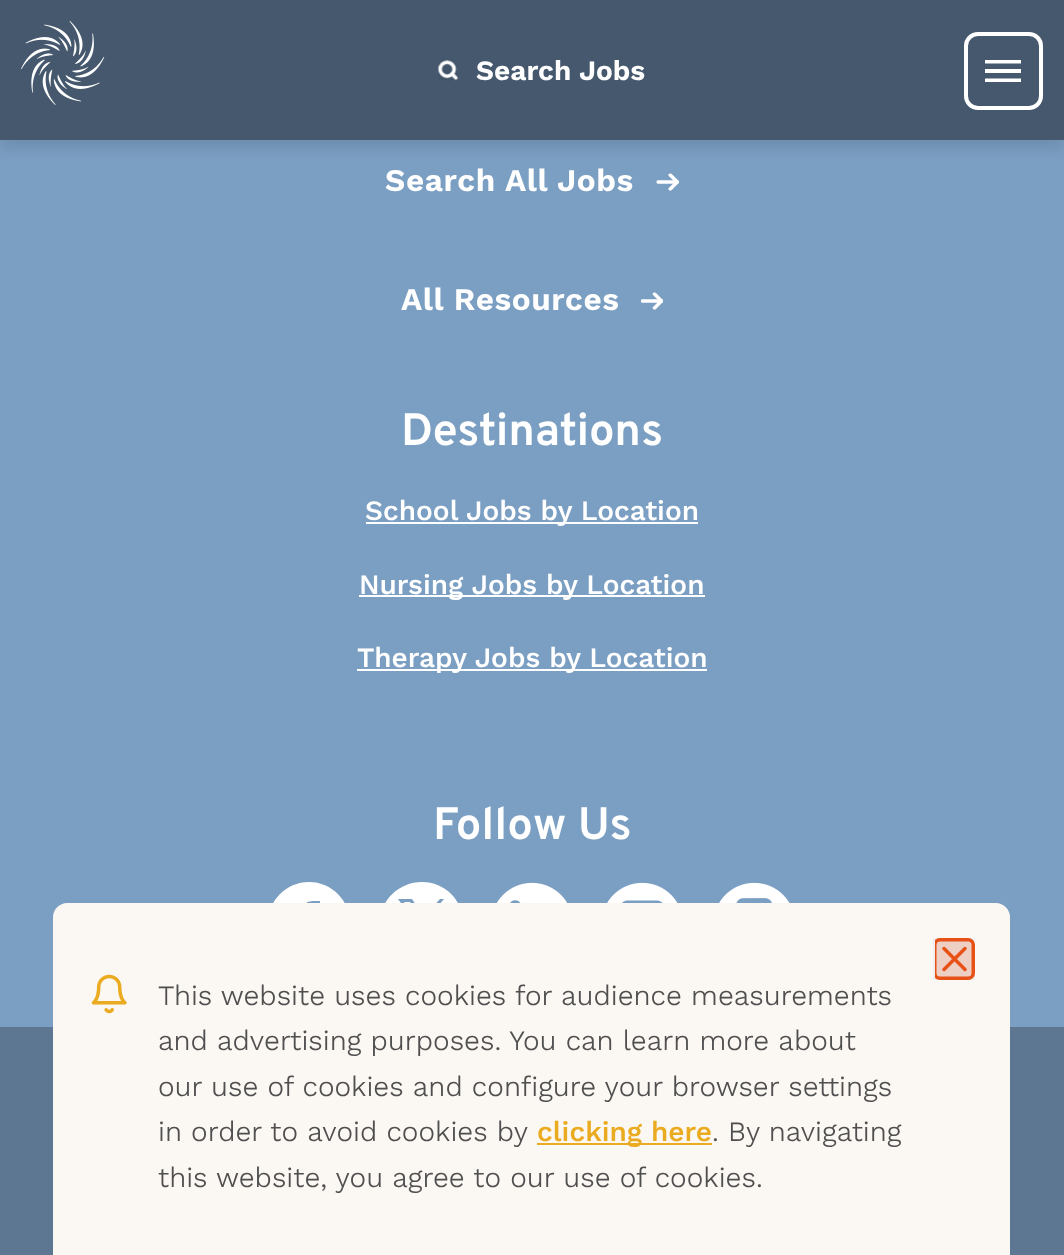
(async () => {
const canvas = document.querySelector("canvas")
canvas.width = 1064
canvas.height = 1255
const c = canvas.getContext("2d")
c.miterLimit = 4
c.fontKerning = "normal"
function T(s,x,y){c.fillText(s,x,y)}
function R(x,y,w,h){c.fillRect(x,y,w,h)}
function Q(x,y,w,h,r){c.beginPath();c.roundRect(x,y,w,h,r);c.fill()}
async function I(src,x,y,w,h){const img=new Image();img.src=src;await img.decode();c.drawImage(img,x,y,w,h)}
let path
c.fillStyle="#7b9fc3"
R(0,0,1064,1255)
c.fillStyle="#0000001a"
c.filter="blur(7px)"
c.beginPath()
c.rect(0,9,1064,140)
c.fill()
c.filter="none"
c.fillStyle="#45586d"
R(0,0,1064,140)
await I("1.png",21,21,84,84)
await I("2.png",438,60,20,21)
c.font="600 28px Work Sans"
c.fillStyle="#fff"
T("Search Jobs",476,80)
c.save()
c.beginPath()
c.rect(985,60,37,22)
c.clip()
path = new Path2D("M985 59.5h36v4h-36zm0 9.5h36v4h-36zm0 9.5h36v3.5h-36z")
c.fill(path)
c.restore()
c.beginPath()
c.roundRect(966,34,75,74,12)
c.strokeStyle="#fff"
c.lineWidth=4
c.stroke()
c.letterSpacing="0.6px"
c.font="600 31.5px Work Sans"
T("Search All Jobs",385,191)
await I("3.png",656,173,23,18)
T("All Resources",401,310)
await I("4.png",641,292,22,18)
c.letterSpacing="0px"
c.font="600 45.5px Overpass"
T("Destinations",401,445)
R(366,522,332,2)
c.font="500 28px Work Sans"
T("School Jobs by Location",365,520)
R(359,595,346,2)
T("Nursing Jobs by Location",359,594)
R(357,669,350,2)
T("Therapy Jobs by Location",357,667)
c.font="600 45.5px Overpass"
T("Follow Us",433,839)
path = new Path2D("M309 882c-23 0-41 19-41 41c0 23 18 42 41 42c23 0 41-19 41-42c0-22-18-41-41-41zm10 43h-6v24h-10v-24h-5v-9h5c0-15 3-15 17-15v8c-7 0-7-1-7 7h7z")
c.fill(path)
path = new Path2D("M380 923c0-23 19-41 42-41c23 0 41 18 41 41c0 23-18 42-41 42c-23 0-42-19-42-42zm64-24l-18 21l19 28h-14l-13-19l-16 19h-4l19-22l-19-27h14l12 18l16-18zm-34 3h-6l29 43h7z")
c.fill(path,"evenodd")
await I("5.png",496,882,71,21)
await I("6.png",607,882,71,21)
await I("7.png",719,882,71,21)
c.fillStyle="#5d7692"
R(0,1027,1064,228)
c.fillStyle="#fbf7f2"
path = new Path2D("M67 903h929c7.5 0 14 6.5 14 14v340h-957v-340c0-7.5 6.5-14 14-14z")
c.fill(path)
c.fillStyle="#efefef"
R(933,938,42,42)
c.save()
c.beginPath()
c.rect(935,938,42,42)
c.clip()
c.fillStyle="#eecfc4"
Q(933,938,42,42,7)
c.restore()
c.save()
c.beginPath()
c.rect(935,938,40,42)
c.clip()
c.beginPath()
c.roundRect(934.75,939.75,38.5,38.5,5.25)
c.strokeStyle="#e85116"
c.lineWidth=3.5
c.stroke()
c.restore()
path = new Path2D("M965 948.5l-21 21m0-21l21 21")
c.strokeStyle="#e85116"
c.lineWidth=3.5
c.lineCap="round"
c.lineJoin="round"
c.stroke(path)
await I("8.png",91,974,36,40)
c.font="300 28px Work Sans"
c.fillStyle="#4f4f4f"
T("This website uses cookies for audience measurements",158,1005)
T("and advertising purposes. You can learn more about",158,1050)
T("our use of cookies and configure your browser settings",158,1096)
T("in order to avoid cookies by",158,1141)
c.fillStyle="#ebab21"
R(537,1143,175,2)
c.font="500 28px Work Sans"
T("clicking here",537,1141)
c.font="300 28px Work Sans"
c.fillStyle="#4f4f4f"
T(". By navigating",712,1141)
T("this website, you agree to our use of cookies.",158,1187)
})()
